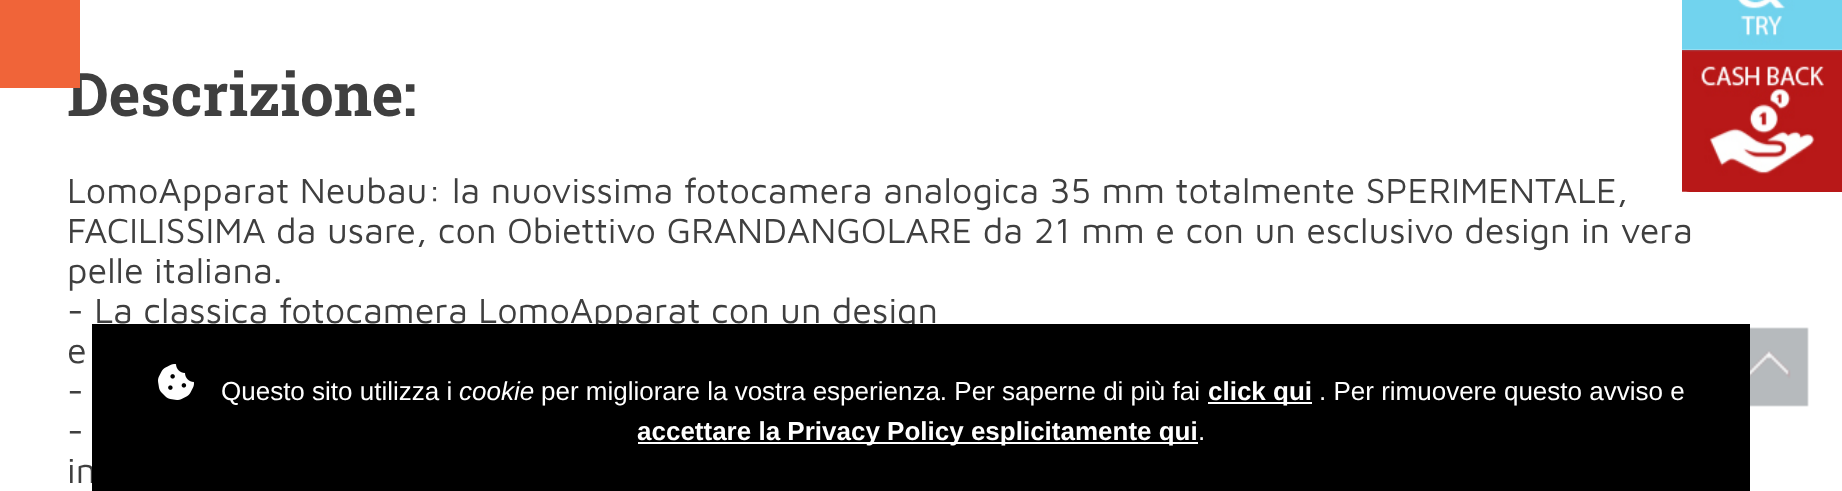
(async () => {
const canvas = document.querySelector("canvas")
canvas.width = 1842
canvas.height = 491
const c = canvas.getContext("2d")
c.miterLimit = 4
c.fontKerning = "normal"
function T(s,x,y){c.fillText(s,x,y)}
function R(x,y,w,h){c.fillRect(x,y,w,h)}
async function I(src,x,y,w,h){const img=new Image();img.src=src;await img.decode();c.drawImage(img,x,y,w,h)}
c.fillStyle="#fff"
R(0,0,1842,491)
c.font="bold 60px Roboto Slab"
c.fillStyle="#3f3f3f"
T("Descrizione:",67,116)
c.fillStyle="#f06439"
R(0,0,80,88)
c.fillStyle="#b81818"
c.beginPath()
c.roundRect(1682,50,160,142,[0,0,0,8])
c.fill()
await I("1.png",1682,0,160,52)
await I("2.png",1682,66,142,126)
c.font="36px Maven Pro"
c.fillStyle="#3f3f3f"
T("LomoApparat Neubau: la nuovissima fotocamera analogica 35 mm totalmente SPERIMENTALE,",67,203)
T("FACILISSIMA da usare, con Obiettivo GRANDANGOLARE da 21 mm e con un esclusivo design in vera",67,243)
T("pelle italiana.",67,283)
T("- La classica fotocamera LomoApparat con un design",67,323)
T("e",67,363)
T("-",67,403)
T("-",67,443)
T("in",67,483)
await I("3.png",1750,327,59,80)
c.fillStyle="#000"
R(92,324,1658,167)
await I("4.png",158,364,36,36)
c.font="26px Liberation Sans"
c.fillStyle="#fff"
T("Questo sito utilizza i",221,400)
c.font="italic 26px Liberation Sans"
T("cookie",459,400)
c.font="26px Liberation Sans"
T("per migliorare la vostra esperienza. Per saperne di più fai",541,400)
R(1208,402,104,2)
c.font="bold 26px Liberation Sans"
T("click qui",1208,400)
c.font="26px Liberation Sans"
T(". Per rimuovere questo avviso e",1319,400)
R(638,442,560,2)
c.font="bold 26px Liberation Sans"
T("accettare la Privacy Policy esplicitamente qui",637,440)
c.font="26px Liberation Sans"
T(".",1198,440)
})()
